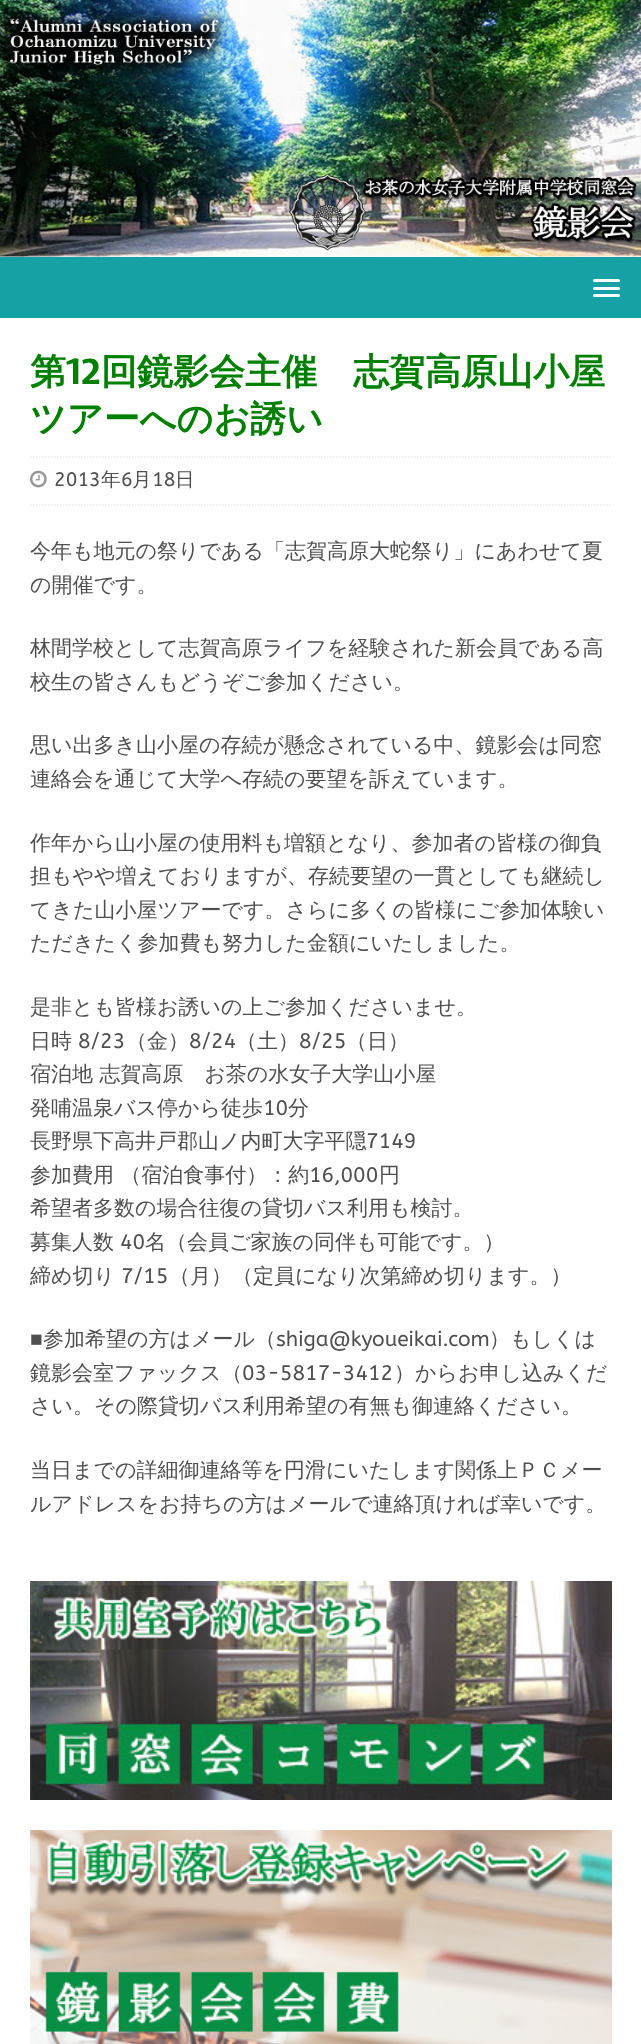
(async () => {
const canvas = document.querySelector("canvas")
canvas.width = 641
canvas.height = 2044
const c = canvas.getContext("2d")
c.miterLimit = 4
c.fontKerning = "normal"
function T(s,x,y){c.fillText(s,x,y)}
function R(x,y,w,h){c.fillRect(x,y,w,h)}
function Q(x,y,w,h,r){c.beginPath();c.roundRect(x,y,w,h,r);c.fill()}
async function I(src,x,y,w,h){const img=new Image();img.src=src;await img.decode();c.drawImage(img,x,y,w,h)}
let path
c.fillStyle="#fff"
R(0,0,641,2044)
await I("1.png",0,0,641,257)
c.fillStyle="#16a1a4"
R(0,257,641,61)
c.fillStyle="#fff"
Q(593,279,27,3,1.5)
Q(593,287,27,3,1.5)
Q(593,294,27,3,1.5)
c.font="bold 36px WenQuanYi Zen Hei"
c.fillStyle="#008000"
T("第",30,384)
c.font="bold 36px Sarala"
T("12",66,384)
c.font="bold 36px WenQuanYi Zen Hei"
T("回鏡影会主催　志賀高原山小屋",101,384)
T("ツアーへのお誘い",30,431)
path = new Path2D("M30 457h582")
c.strokeStyle="#ebebeb"
c.lineWidth=1.5
c.setLineDash([1.5,1.5])
c.stroke(path)
path = new Path2D("M30 505h582")
c.stroke(path)
await I("2.png",30,470,17,18)
c.font="19.5px ABeeZee"
c.fillStyle="#4f4f4f"
T("2013",54,486)
c.font="500 19.5px WenQuanYi Zen Hei"
T("年",101,486)
c.font="19.5px ABeeZee"
T("6",121,486)
c.font="500 19.5px WenQuanYi Zen Hei"
T("月",132,486)
c.font="19.5px ABeeZee"
T("18",152,486)
c.font="500 19.5px WenQuanYi Zen Hei"
T("日",175,486)
c.font="500 21px WenQuanYi Zen Hei"
T("今年も地元の祭りである「志賀高原大蛇祭り」にあわせて夏",30,558)
T("の開催です。",30,592)
T("林間学校として志賀高原ライフを経験された新会員である高",30,655)
T("校生の皆さんもどうぞご参加ください。",30,689)
T("思い出多き山小屋の存続が懸念されている中、鏡影会は同窓",30,752)
T("連絡会を通じて大学へ存続の要望を訴えています。",30,786)
T("作年から山小屋の使用料も増額となり、参加者の皆様の御負",30,850)
T("担もやや増えておりますが、存続要望の一貫としても継続し",30,883)
T("てきた山小屋ツアーです。さらに多くの皆様にご参加体験い",30,917)
T("ただきたく参加費も努力した金額にいたしました。",30,950)
T("是非とも皆様お誘いの上ご参加くださいませ。",30,1014)
T("日時",30,1048)
c.font="21px ABeeZee"
T("8/23",78,1048)
c.font="500 21px WenQuanYi Zen Hei"
T("（金）",126,1048)
c.font="21px ABeeZee"
T("8/24",189,1048)
c.font="500 21px WenQuanYi Zen Hei"
T("（土）",236,1048)
c.font="21px ABeeZee"
T("8/25",299,1048)
c.font="500 21px WenQuanYi Zen Hei"
T("（日）",346,1048)
T("宿泊地 志賀高原　お茶の水女子大学山小屋",30,1081)
T("発哺温泉バス停から徒歩",30,1115)
c.font="21px ABeeZee"
T("10",263,1115)
c.font="500 21px WenQuanYi Zen Hei"
T("分",288,1115)
T("長野県下高井戸郡山ノ内町大字平隠",30,1148)
c.font="21px ABeeZee"
T("7149",366,1148)
c.font="500 21px WenQuanYi Zen Hei"
T("参加費用 （宿泊食事付）：約",30,1182)
c.font="21px ABeeZee"
T("16,000",309,1182)
c.font="500 21px WenQuanYi Zen Hei"
T("円",379,1182)
T("希望者多数の場合往復の貸切バス利用も検討。",30,1215)
T("募集人数",30,1249)
c.font="21px ABeeZee"
T("40",120,1249)
c.font="500 21px WenQuanYi Zen Hei"
T("名（会員ご家族の同伴も可能です。）",145,1249)
T("締め切り",30,1283)
c.font="21px ABeeZee"
T("7/15",121,1283)
c.font="500 21px WenQuanYi Zen Hei"
T("（月）（定員になり次第締め切ります。）",169,1283)
c.font="21px Liberation Sans"
T("■",30,1346)
c.font="500 21px WenQuanYi Zen Hei"
T("参加希望の方はメール（",43,1346)
c.font="21px ABeeZee"
T("shiga@kyoueikai.com",276,1346)
c.font="500 21px WenQuanYi Zen Hei"
T("）もしくは",489,1346)
T("鏡影会室ファックス（",30,1380)
c.font="21px ABeeZee"
T("03-5817-3412",242,1380)
c.font="500 21px WenQuanYi Zen Hei"
T("）からお申し込みくだ",394,1380)
T("さい。その際貸切バス利用希望の有無も御連絡ください。",30,1413)
T("当日までの詳細御連絡等を円滑にいたします関係上ＰＣメー",30,1477)
T("ルアドレスをお持ちの方はメールで連絡頂ければ幸いです。",30,1511)
await I("3.png",30,1581,582,219)
await I("4.png",30,1830,582,214)
})()
